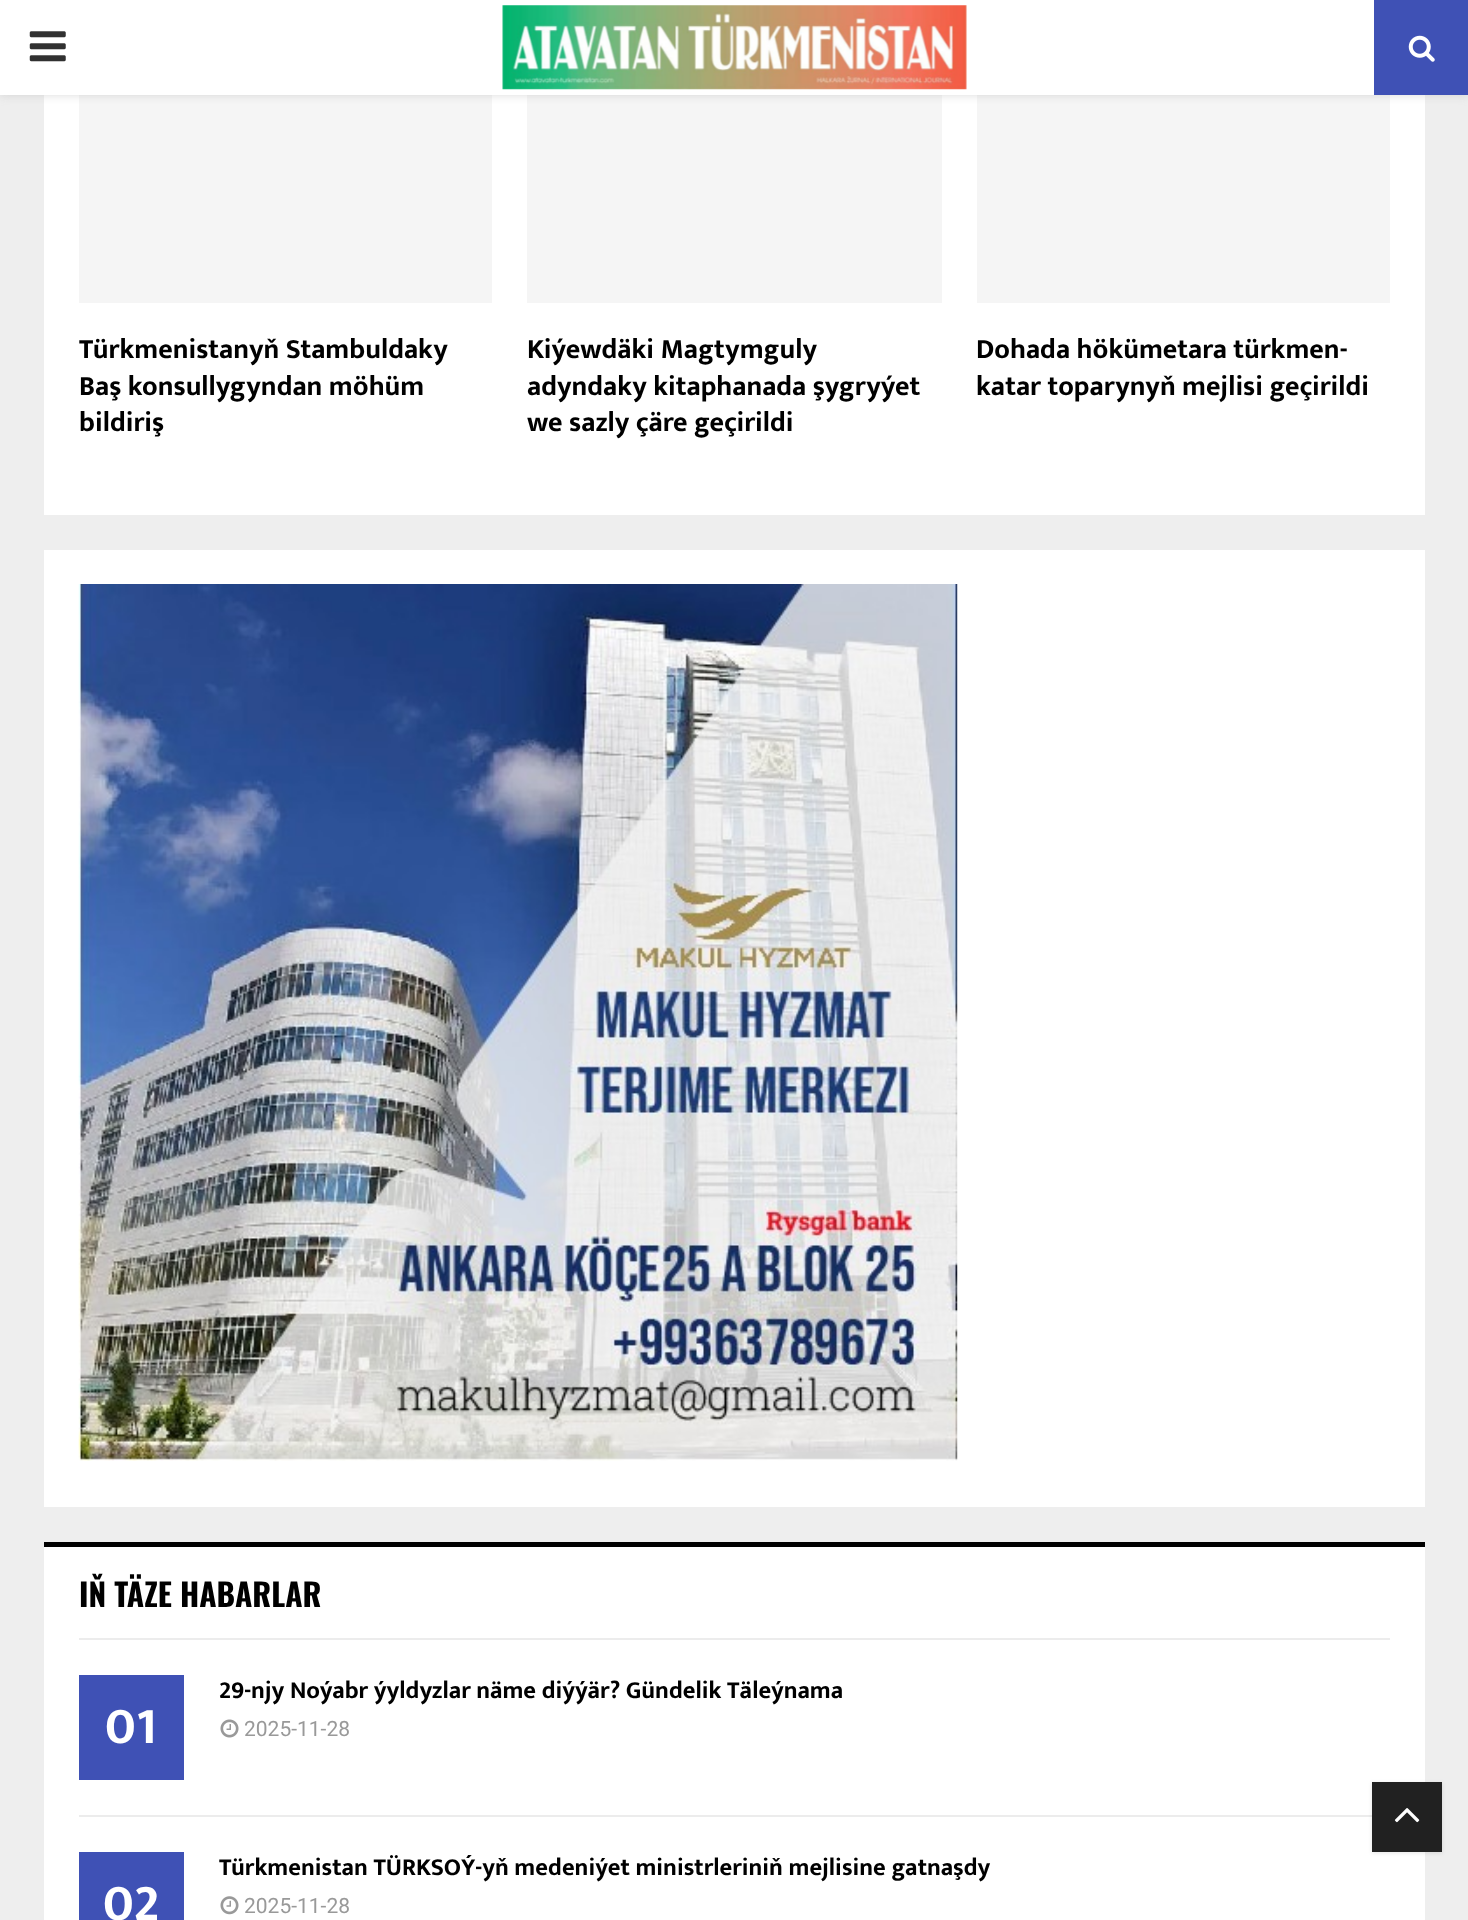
(async () => {
const canvas = document.querySelector("canvas")
canvas.width = 1468
canvas.height = 1920
const c = canvas.getContext("2d")
c.miterLimit = 4
c.fontKerning = "normal"
function T(s,x,y){c.fillText(s,x,y)}
function R(x,y,w,h){c.fillRect(x,y,w,h)}
async function I(src,x,y,w,h){const img=new Image();img.src=src;await img.decode();c.drawImage(img,x,y,w,h)}
c.fillStyle="#eee"
R(0,0,1468,1920)
c.fillStyle="#fff"
R(44,95,1381,420)
c.fillStyle="#f5f5f5"
R(79,95,413,208)
R(527,95,415,208)
R(977,95,413,208)
c.fillStyle="#bebebe75"
c.filter="blur(4.5px)"
c.beginPath()
c.rect(0,2,1468,94)
c.fill()
c.filter="none"
c.fillStyle="#fff"
R(0,0,1374,95)
await I("1.png",29,31,37,31)
await I("2.png",502,5,465,85)
c.fillStyle="#3f51b5"
R(1374,0,94,95)
await I("3.png",1408,35,27,27)
c.font="bold 28px Mukta Vaani"
c.fillStyle="#000"
T("Türkmenistanyň Stambuldaky",79,358)
T("Baş konsullygyndan möhüm",79,395)
T("bildiriş",79,431)
T("Kiýewdäki Magtymguly",527,358)
T("adyndaky kitaphanada şygryýet",527,395)
T("we sazly çäre geçirildi",527,431)
T("Dohada hökümetara türkmen-",976,358)
T("katar toparynyň mejlisi geçirildi",976,395)
c.fillStyle="#fff"
R(44,550,1381,957)
await I("4.png",78,584,880,877)
R(44,1547,1381,373)
c.fillStyle="#ececec"
R(79,1638,1311,2)
c.fillStyle="#000"
R(44,1542,1381,5)
c.font="bold 31.5px Oswald"
T("IŇ TÄZE HABARLAR",79,1607)
c.fillStyle="#ececec"
R(79,1815,1293,2)
c.fillStyle="#3f51b5"
R(79,1675,105,105)
c.font="bold 52px Mukta Vaani"
c.fillStyle="#fff"
T("01",105,1743)
c.font="bold 24.5px Mukta Vaani"
c.fillStyle="#000"
T("29-njy Noýabr ýyldyzlar näme diýýär? Gündelik Täleýnama",219,1698)
await I("5.png",220,1719,19,19)
c.font="21px Roboto"
c.fillStyle="#999"
T("2025-11-28",244,1736)
c.fillStyle="#3f51b5"
R(79,1852,105,68)
c.font="bold 52px Mukta Vaani"
c.fillStyle="#fff"
T("02",103,1920)
c.font="bold 24.5px Mukta Vaani"
c.fillStyle="#000"
T("Türkmenistan TÜRKSOÝ-yň medeniýet ministrleriniň mejlisine gatnaşdy",219,1875)
await I("6.png",220,1896,19,19)
c.font="21px Roboto"
c.fillStyle="#999"
T("2025-11-28",244,1913)
c.fillStyle="#0000001a"
c.filter="blur(2px)"
c.beginPath()
c.rect(1372,1783,70,70)
c.fill()
c.filter="none"
c.fillStyle="#212121"
R(1372,1782,70,70)
await I("7.png",1394,1808,26,15)
})()
